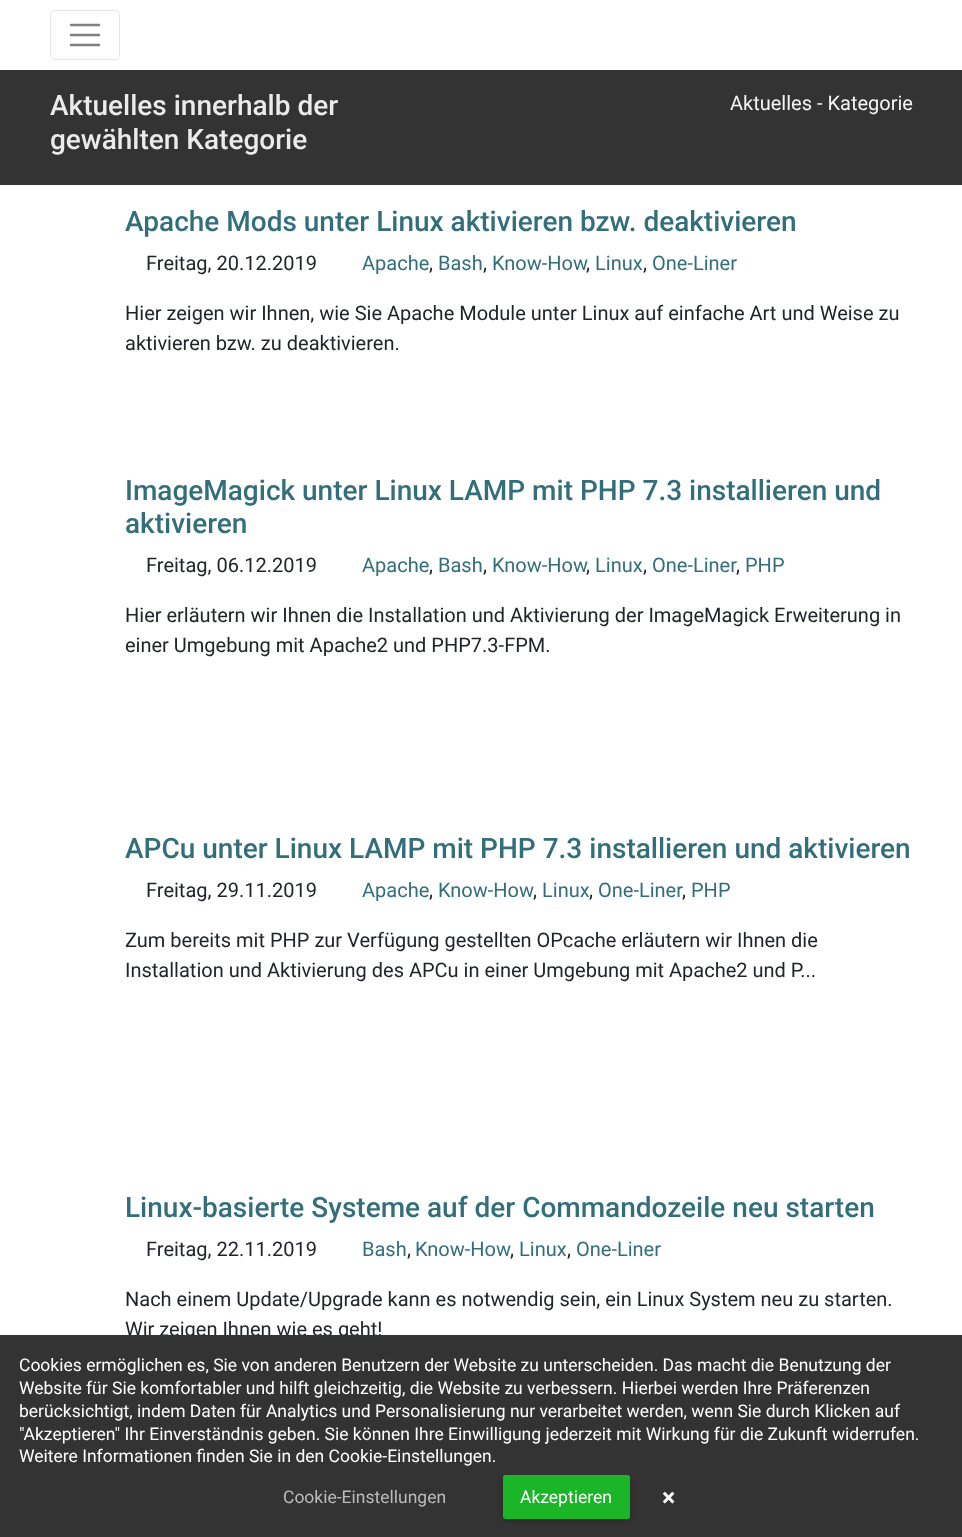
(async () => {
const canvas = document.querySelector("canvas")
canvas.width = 962
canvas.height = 1537
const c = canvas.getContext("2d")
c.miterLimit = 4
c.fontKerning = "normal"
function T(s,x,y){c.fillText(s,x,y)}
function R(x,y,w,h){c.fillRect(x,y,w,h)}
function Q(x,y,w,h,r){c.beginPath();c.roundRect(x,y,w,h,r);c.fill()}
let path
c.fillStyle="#fff"
R(0,0,962,1537)
c.beginPath()
c.roundRect(50.5,10.5,69,49,4.5)
c.strokeStyle="#e6e6e6"
c.stroke()
path = new Path2D("M71 25h28m-28 10h28m-28 10h28")
c.strokeStyle="#808080"
c.lineWidth=2.5
c.lineCap="round"
c.stroke(path)
c.fillStyle="#333"
R(0,70,962,115)
c.font="500 28px Roboto"
c.fillStyle="#ebebeb"
T("Aktuelles innerhalb der",50,115)
T("gewählten Kategorie",50,149)
c.font="20px Roboto"
c.fillStyle="#f5f5f5"
T("Aktuelles - Kategorie",730,110)
c.font="500 28px Roboto"
c.fillStyle="#336e7b"
T("Apache Mods unter Linux aktivieren bzw. deaktivieren",125,231)
c.font="20px Roboto"
c.fillStyle="#212529"
T("Freitag, 20.12.2019",146,270)
c.fillStyle="#336e7b"
T("Apache",362,270)
c.fillStyle="#212529"
T(",",429,270)
c.fillStyle="#336e7b"
T("Bash",438,270)
c.fillStyle="#212529"
T(",",483,270)
c.fillStyle="#336e7b"
T("Know-How",492,270)
T("Linux",595,270)
T("One-Liner",652,270)
c.fillStyle="#212529"
T(",",586,270)
T(",",643,270)
T("Hier zeigen wir Ihnen, wie Sie Apache Module unter Linux auf einfache Art und Weise zu",125,320)
T("aktivieren bzw. zu deaktivieren.",125,350)
c.font="500 28px Roboto"
c.fillStyle="#336e7b"
T("ImageMagick unter Linux LAMP mit PHP 7.3 installieren und",125,500)
T("aktivieren",125,533)
c.font="20px Roboto"
c.fillStyle="#212529"
T("Freitag, 06.12.2019",146,572)
c.fillStyle="#336e7b"
T("Apache",362,572)
c.fillStyle="#212529"
T(",",429,572)
c.fillStyle="#336e7b"
T("Bash",438,572)
c.fillStyle="#212529"
T(",",483,572)
c.fillStyle="#336e7b"
T("Know-How",492,572)
T("Linux",595,572)
T("One-Liner",652,572)
T("PHP",745,572)
c.fillStyle="#212529"
T(",",586,572)
T(",",643,572)
T(",",736,572)
T("Hier erläutern wir Ihnen die Installation und Aktivierung der ImageMagick Erweiterung in",125,622)
T("einer Umgebung mit Apache2 und PHP7.3-FPM.",125,652)
c.font="500 28px Roboto"
c.fillStyle="#336e7b"
T("APCu unter Linux LAMP mit PHP 7.3 installieren und aktivieren",125,858)
c.font="20px Roboto"
c.fillStyle="#212529"
T("Freitag, 29.11.2019",146,897)
c.fillStyle="#336e7b"
T("Apache",362,897)
c.fillStyle="#212529"
T(",",429,897)
c.fillStyle="#336e7b"
T("Know-How",438,897)
c.fillStyle="#212529"
T(",",533,897)
c.fillStyle="#336e7b"
T("Linux",542,897)
c.fillStyle="#212529"
T(",",589,897)
c.fillStyle="#336e7b"
T("One-Liner",598,897)
T("PHP",691,897)
c.fillStyle="#212529"
T(",",682,897)
T("Zum bereits mit PHP zur Verfügung gestellten OPcache erläutern wir Ihnen die",125,947)
T("Installation und Aktivierung des APCu in einer Umgebung mit Apache2 und P...",125,977)
c.font="500 28px Roboto"
c.fillStyle="#336e7b"
T("Linux-basierte Systeme auf der Commandozeile neu starten",125,1217)
c.font="20px Roboto"
c.fillStyle="#212529"
T("Freitag, 22.11.2019",146,1256)
c.fillStyle="#336e7b"
T("Bash",362,1256)
c.fillStyle="#212529"
T(",",407,1256)
c.fillStyle="#336e7b"
T("Know-How",415,1256)
T("Linux",519,1256)
T("One-Liner",576,1256)
c.fillStyle="#212529"
T(",",510,1256)
T(",",567,1256)
T("Nach einem Update/Upgrade kann es notwendig sein, ein Linux System neu zu starten.",125,1306)
T("Wir zeigen Ihnen wie es geht!",125,1336)
c.fillStyle="#333"
R(0,1335,962,202)
c.font="17.5px Roboto"
c.fillStyle="#fff"
T("Cookies ermöglichen es, Sie von anderen Benutzern der Website zu unterscheiden. Das macht die Benutzung der",19,1371)
T("Website für Sie komfortabler und hilft gleichzeitig, die Website zu verbessern. Hierbei werden Ihre Präferenzen",19,1394)
T("berücksichtigt, indem Daten für Analytics und Personalisierung nur verarbeitet werden, wenn Sie durch Klicken auf",19,1417)
T("\"Akzeptieren\" Ihr Einverständnis geben. Sie können Ihre Einwilligung jederzeit mit Wirkung für die Zukunft widerrufen.",19,1440)
T("Weitere Informationen finden Sie in den Cookie-Einstellungen.",19,1462)
c.fillStyle="#bbb"
T("Cookie-Einstellungen",283,1503)
c.fillStyle="#00000033"
c.filter="blur(2px)"
c.beginPath()
c.roundRect(503,1478,127,43,2.5)
c.fill()
c.filter="none"
c.fillStyle="#1bb627"
Q(503,1475,127,44,2.5)
c.fillStyle="#fff"
T("Akzeptieren",520,1503)
c.font="bold 25px Roboto"
T("×",662,1506)
})()
